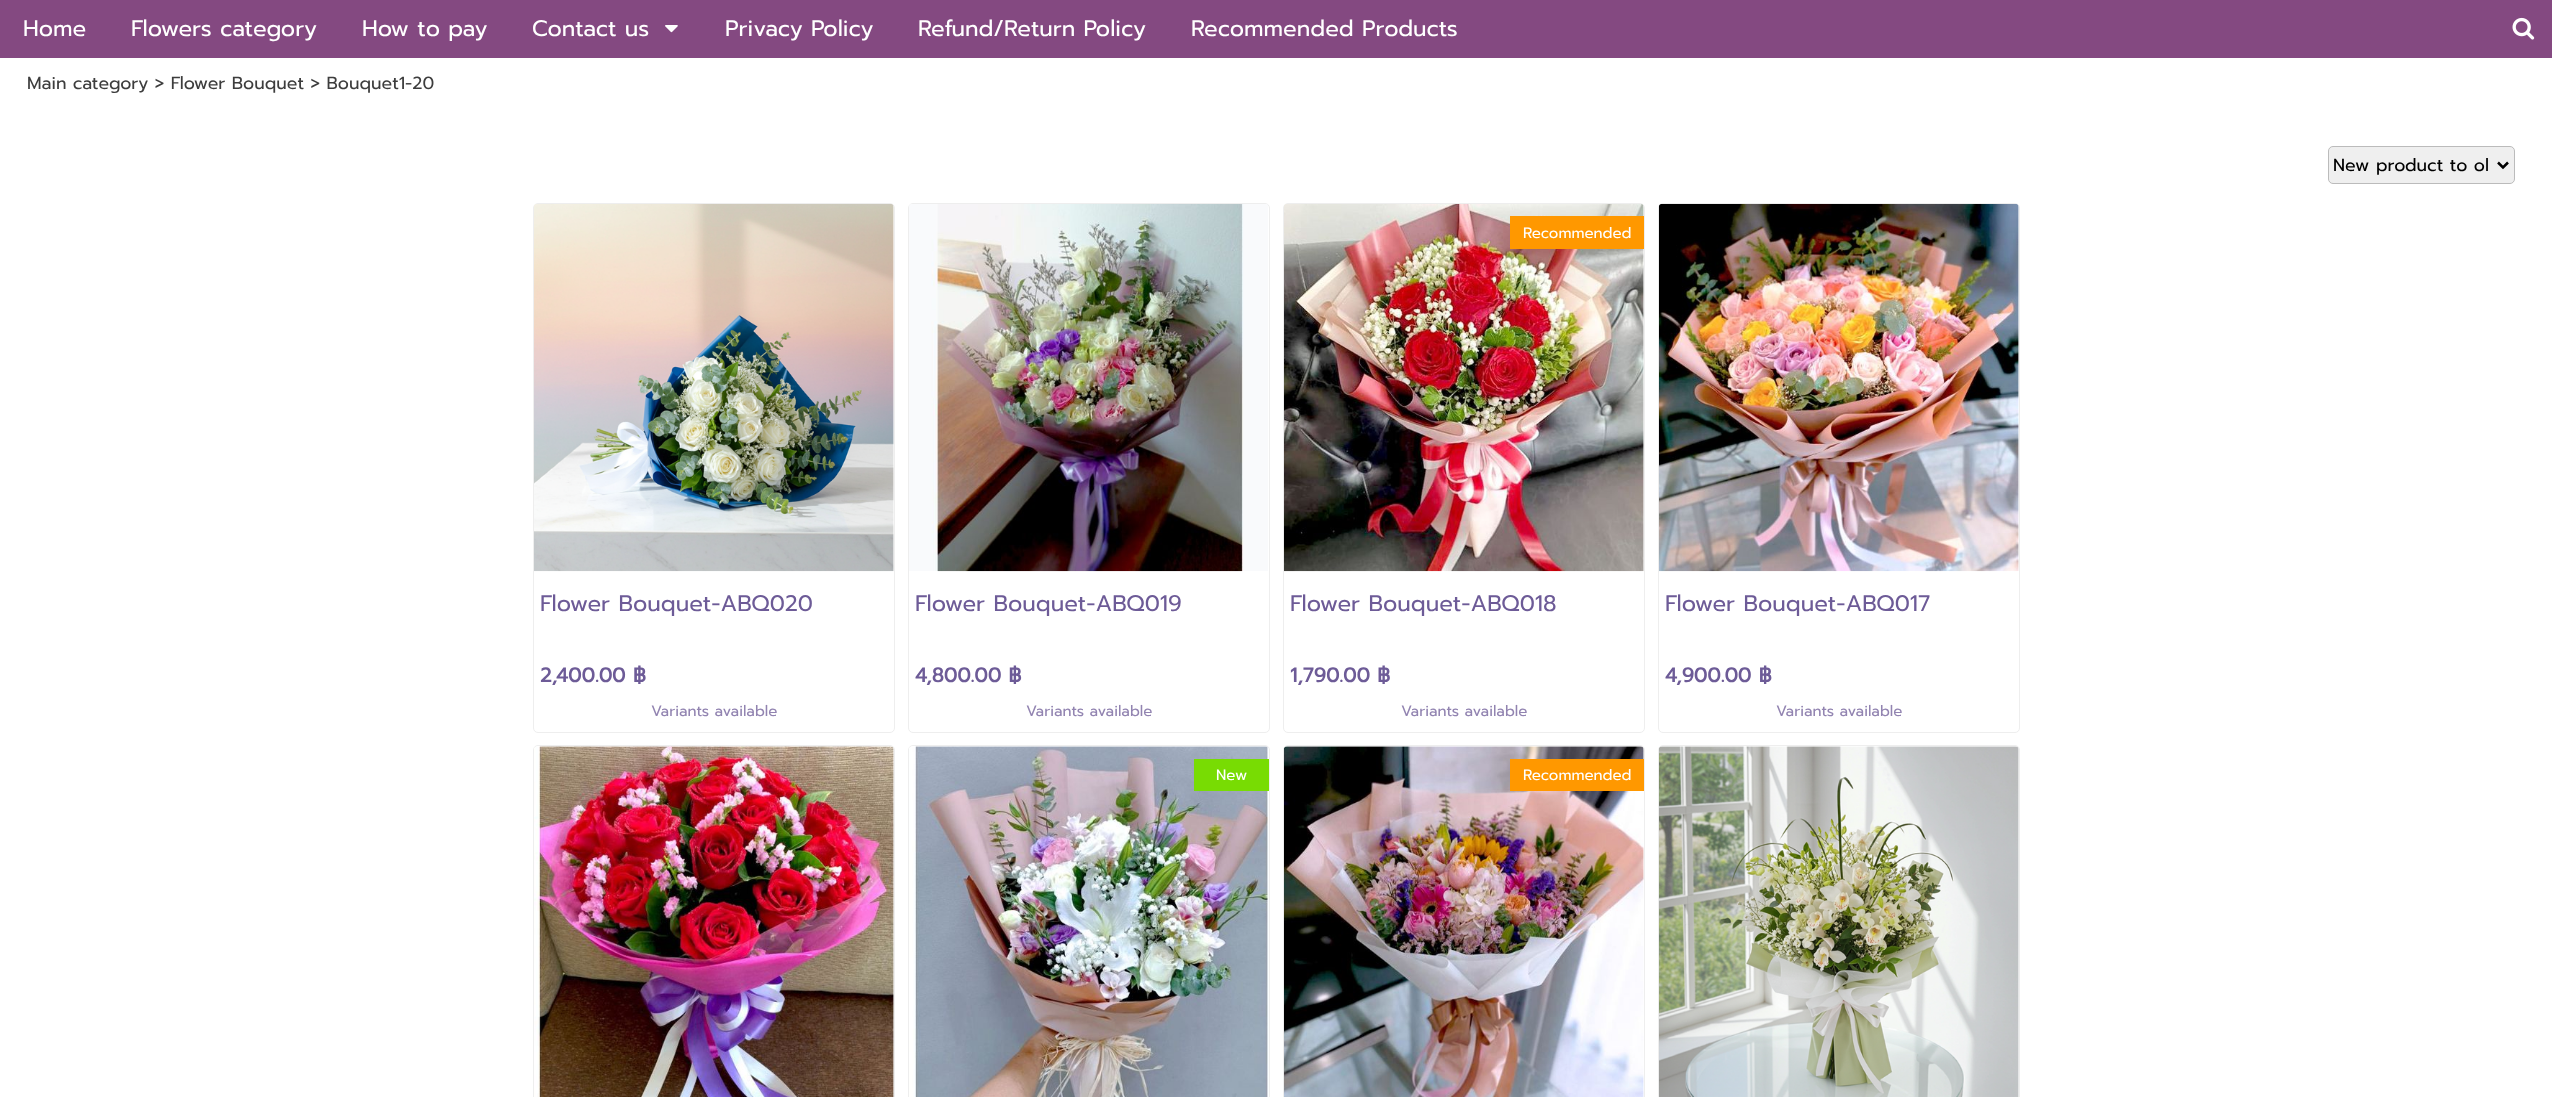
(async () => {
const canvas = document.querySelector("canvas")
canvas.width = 2552
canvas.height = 1097
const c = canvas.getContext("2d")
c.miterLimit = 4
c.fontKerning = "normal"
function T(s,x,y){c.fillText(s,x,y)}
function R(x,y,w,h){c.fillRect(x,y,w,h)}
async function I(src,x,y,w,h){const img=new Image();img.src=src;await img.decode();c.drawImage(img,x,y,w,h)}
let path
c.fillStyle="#fff"
R(0,0,2552,1097)
c.fillStyle="#844981"
R(0,0,2552,58)
c.font="22.5px Prompt"
c.fillStyle="#fff"
T("Home",23,36)
T("Flowers category",131,36)
T("How to pay",362,36)
T("Contact us",532,36)
await I("1.png",665,25,13,8)
T("Privacy Policy",725,36)
T("Refund/Return Policy",918,36)
T("Recommended Products",1191,36)
await I("2.png",2512,17,23,23)
c.font="17.5px Prompt"
c.fillStyle="#3d3d3d"
T("Main category > Flower Bouquet > Bouquet1-20",27,89)
c.fillStyle="#efefef"
c.beginPath()
c.roundRect(2328.5,146.5,186,37,4.5)
c.fill()
c.strokeStyle="#bbb"
c.stroke()
path = new Path2D("M2498 162.5l5 5l5-5")
c.strokeStyle="#000"
c.lineWidth=2.5
c.stroke(path)
c.fillStyle="#000"
T("New product to ol",2333,171)
c.beginPath()
c.roundRect(533.5,203.5,361,529,4.5)
c.strokeStyle="#eee"
c.lineWidth=1
c.stroke()
await I("3.png",534,204,360,368)
c.font="22.5px Prompt"
c.fillStyle="#6d5b97"
T("Flower Bouquet-ABQ020",540,611)
c.font="bold 20px Prompt"
T("2,400.00 ฿",540,682)
c.font="15px Prompt"
c.fillStyle="#9284b1"
T("Variants available",651,716)
c.beginPath()
c.roundRect(908.5,203.5,361,529,4.5)
c.stroke()
await I("4.png",909,204,359,368)
c.font="22.5px Prompt"
c.fillStyle="#6d5b97"
T("Flower Bouquet-ABQ019",915,611)
c.font="bold 20px Prompt"
T("4,800.00 ฿",915,682)
c.font="15px Prompt"
c.fillStyle="#9284b1"
T("Variants available",1026,716)
c.beginPath()
c.roundRect(1283.5,203.5,361,529,4.5)
c.stroke()
await I("5.png",1284,204,360,368)
c.fillStyle="#ff9800"
R(1510,216,134,33)
c.fillStyle="#fff"
T("Recommended",1523,238)
c.font="22.5px Prompt"
c.fillStyle="#6d5b97"
T("Flower Bouquet-ABQ018",1290,611)
c.font="bold 20px Prompt"
T("1,790.00 ฿",1290,682)
c.font="15px Prompt"
c.fillStyle="#9284b1"
T("Variants available",1401,716)
c.beginPath()
c.roundRect(1658.5,203.5,361,529,4.5)
c.stroke()
await I("6.png",1659,204,360,368)
c.font="22.5px Prompt"
c.fillStyle="#6d5b97"
T("Flower Bouquet-ABQ017",1665,611)
c.font="bold 20px Prompt"
T("4,900.00 ฿",1665,682)
c.font="15px Prompt"
c.fillStyle="#9284b1"
T("Variants available",1776,716)
c.beginPath()
c.roundRect(533.5,745.5,361,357,4.5)
c.stroke()
await I("7.png",534,746,360,351)
c.beginPath()
c.roundRect(908.5,745.5,361,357,4.5)
c.stroke()
await I("8.png",909,746,360,351)
c.fillStyle="#78dc03"
R(1194,759,75,32)
c.fillStyle="#fff"
T("New",1216,780)
c.beginPath()
c.roundRect(1283.5,745.5,361,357,4.5)
c.stroke()
await I("9.png",1284,746,360,351)
c.fillStyle="#ff9800"
R(1510,759,134,32)
c.fillStyle="#fff"
T("Recommended",1523,780)
c.beginPath()
c.roundRect(1658.5,745.5,361,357,4.5)
c.stroke()
await I("10.png",1659,746,360,351)
})()
